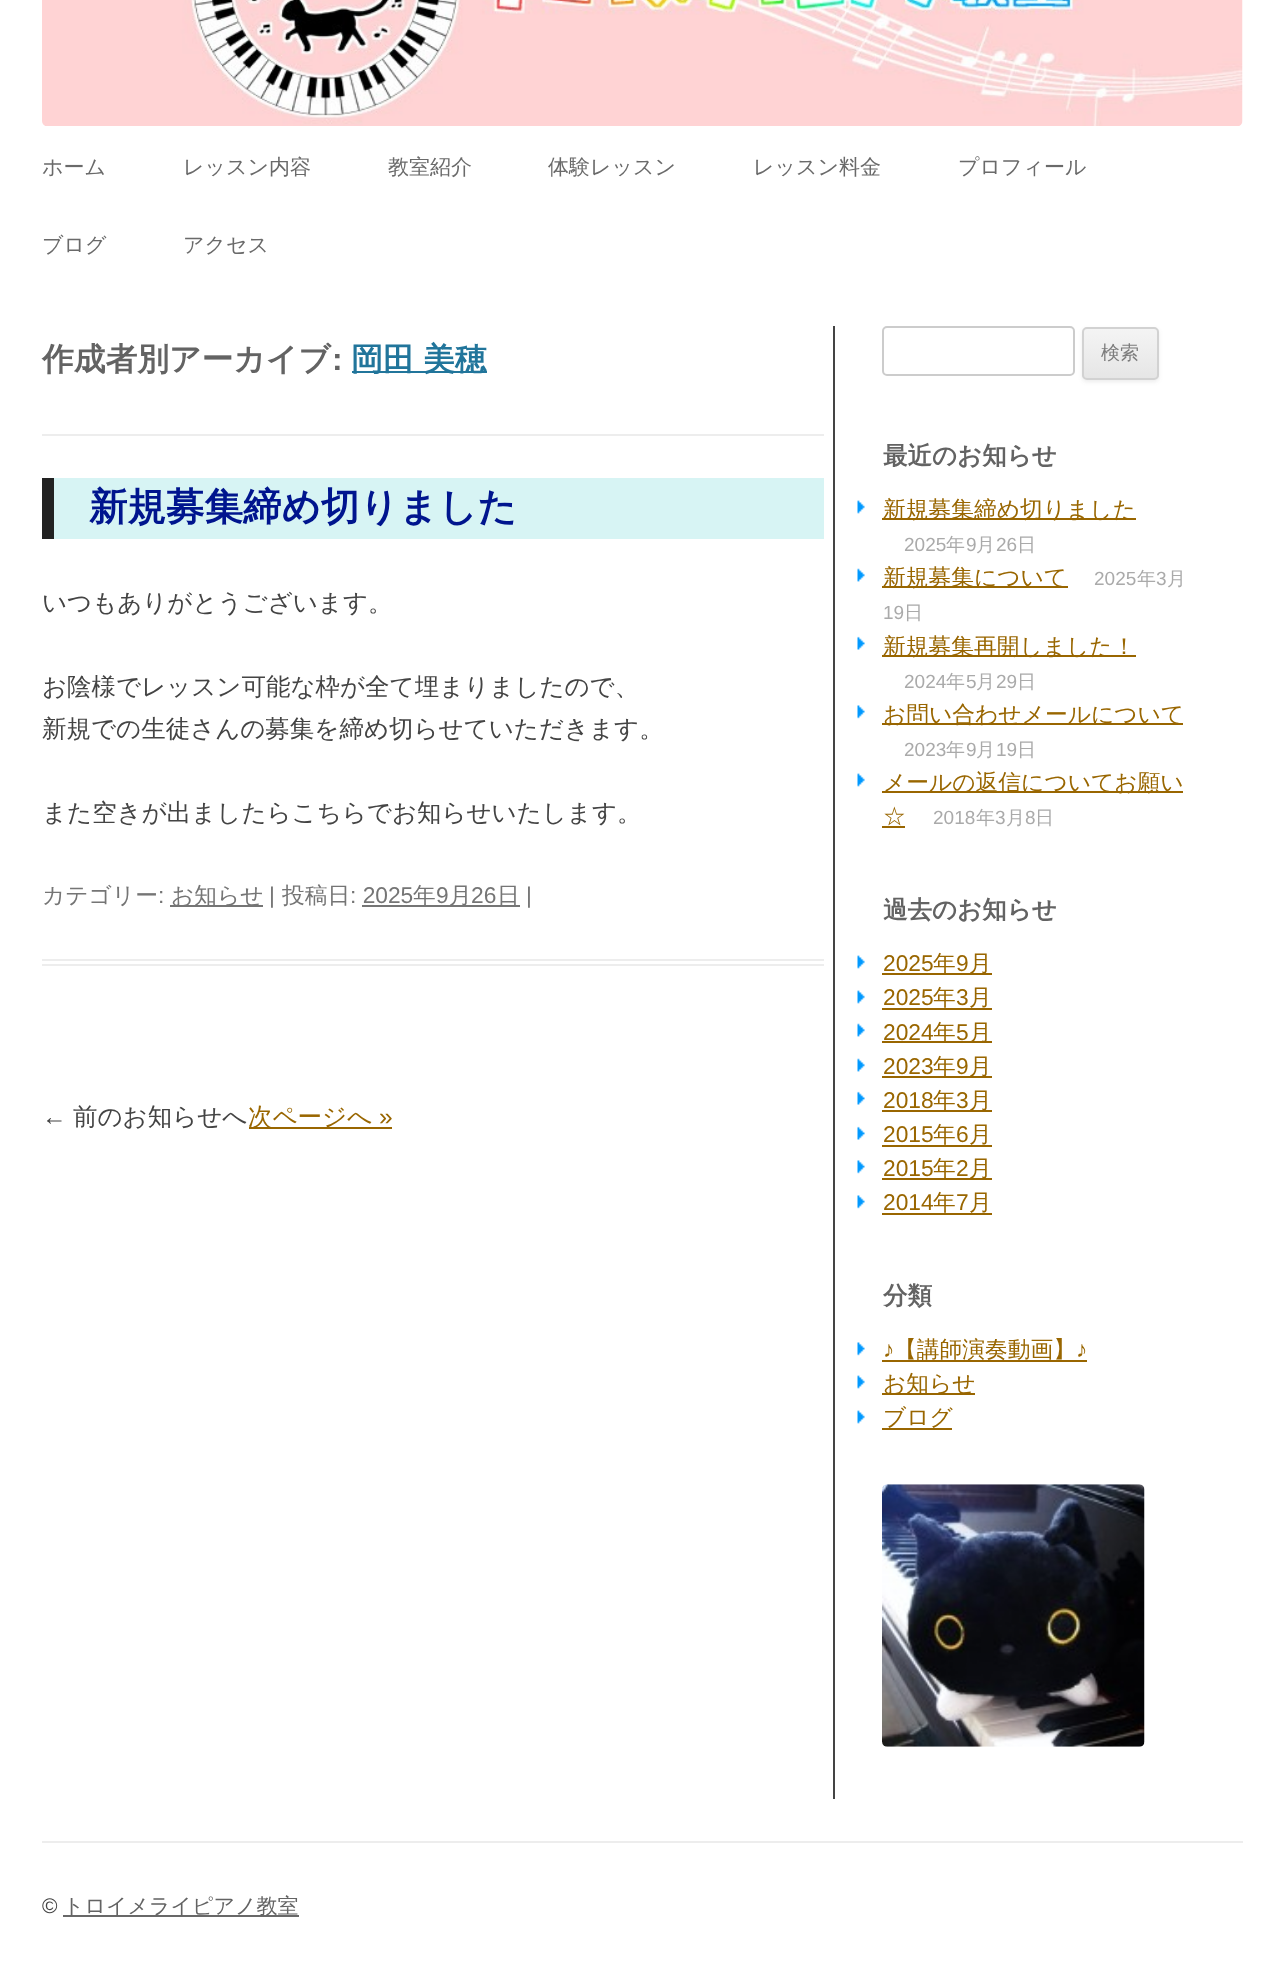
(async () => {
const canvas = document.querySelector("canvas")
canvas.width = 1283
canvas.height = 1968
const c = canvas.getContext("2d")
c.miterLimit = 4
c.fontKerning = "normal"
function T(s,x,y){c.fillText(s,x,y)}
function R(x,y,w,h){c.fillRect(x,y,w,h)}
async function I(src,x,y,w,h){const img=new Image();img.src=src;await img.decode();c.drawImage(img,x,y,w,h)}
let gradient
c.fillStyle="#fff"
R(0,0,1283,1968)
await I("1.png",42,0,1201,126)
c.font="500 21px WenQuanYi Zen Hei"
c.fillStyle="#6a6a6a"
T("ホーム",42,174)
T("レッスン内容",183,174)
T("教室紹介",388,174)
T("体験レッスン",548,174)
T("レッスン料金",753,174)
T("プロフィール",958,174)
T("ブログ",42,252)
T("アクセス",183,252)
c.fillStyle="#ededed"
R(42,434,782,2)
c.font="bold 31.75px WenQuanYi Zen Hei"
c.fillStyle="#636363"
T("作成者別アーカイブ",42,370)
c.font="bold 31.75px Liberation Sans"
T(":",332,370)
c.fillStyle="#21759b"
R(352,371,135,2)
c.wordSpacing="-1px"
c.font="bold 31.75px WenQuanYi Zen Hei"
T("岡田 美穂",351,370)
c.fillStyle="#ededed"
R(42,959,782,2)
R(42,964,782,2)
c.fillStyle="#d7f4f4"
R(54,478,770,61)
c.fillStyle="#222"
R(42,478,12,61)
c.wordSpacing="0px"
c.font="bold 38.5px WenQuanYi Zen Hei"
c.fillStyle="#00158e"
T("新規募集締め切りました",89,520)
c.font="500 24.5px WenQuanYi Zen Hei"
c.fillStyle="#444"
T("いつもありがとうございます。",42,611)
T("お陰様でレッスン可能な枠が全て埋まりましたので、",42,695)
T("新規での生徒さんの募集を締め切らせていただきます。",42,737)
T("また空きが出ましたらこちらでお知らせいたします。",42,821)
c.font="500 22.75px WenQuanYi Zen Hei"
c.fillStyle="#757575"
T("カテゴリー",42,903)
c.font="22.75px Liberation Sans"
T(":",158,903)
R(170,905,93,2)
c.font="500 22.75px WenQuanYi Zen Hei"
T("お知らせ",171,903)
c.font="22.75px Liberation Sans"
T("|",269,903)
c.font="500 22.75px WenQuanYi Zen Hei"
T("投稿日",282,903)
c.font="22.75px Liberation Sans"
T(": 2025",350,903)
R(362,905,158,2)
c.font="500 22.75px WenQuanYi Zen Hei"
T("年",413,903)
c.font="22.75px Liberation Sans"
T("9",436,903)
c.font="500 22.75px WenQuanYi Zen Hei"
T("月",449,903)
c.font="22.75px Liberation Sans"
T("26",471,903)
c.font="500 22.75px WenQuanYi Zen Hei"
T("日",497,903)
c.font="22.75px Liberation Sans"
T("|",526,903)
c.font="24.5px Liberation Sans"
c.fillStyle="#444"
T("←",42,1125)
c.font="500 24.5px WenQuanYi Zen Hei"
T("前のお知らせへ",73,1125)
c.fillStyle="#960"
R(249,1127,143,2)
T("次ページへ",248,1125)
c.font="24.5px Liberation Sans"
T("»",379,1125)
c.fillStyle="#444"
R(833,326,2,1473)
c.beginPath()
c.roundRect(883,327,191,48,4)
c.strokeStyle="#ccc"
c.lineWidth=2
c.stroke()
c.fillStyle="#4040401a"
c.filter="blur(2px)"
c.beginPath()
c.roundRect(1082,329,77,53,5)
c.fill()
c.filter="none"
c.save()
c.beginPath()
c.roundRect(1082,327,77,53,5)
c.clip()
gradient = c.createLinearGradient(1120,329,1120,378)
gradient.addColorStop(0,"#f4f4f4")
gradient.addColorStop(1,"#e6e6e6")
c.fillStyle = gradient
R(1082,329,77,49)
c.restore()
c.beginPath()
c.roundRect(1083,328,75,51,4)
c.strokeStyle="#d2d2d2"
c.stroke()
c.font="500 19px WenQuanYi Zen Hei"
c.fillStyle="#7c7c7c"
T("検索",1101,359)
c.font="bold 24.5px WenQuanYi Zen Hei"
c.fillStyle="#636363"
T("最近のお知らせ",883,464)
await I("2.png",857,500,8,14)
c.fillStyle="#960"
R(882,518,254,2)
c.font="500 22.75px WenQuanYi Zen Hei"
T("新規募集締め切りました",883,517)
c.font="19px Liberation Sans"
c.fillStyle="#aaa"
T("2025",904,551)
c.font="500 19px WenQuanYi Zen Hei"
T("年",946,551)
c.font="19px Liberation Sans"
T("9",966,551)
c.font="500 19px WenQuanYi Zen Hei"
T("月",976,551)
c.font="19px Liberation Sans"
T("26",996,551)
c.font="500 19px WenQuanYi Zen Hei"
T("日",1017,551)
await I("3.png",857,568,8,14)
c.fillStyle="#960"
R(882,586,186,2)
c.font="500 22.75px WenQuanYi Zen Hei"
T("新規募集について",883,585)
c.font="19px Liberation Sans"
c.fillStyle="#aaa"
T("2025",1094,585)
c.font="500 19px WenQuanYi Zen Hei"
T("年",1137,585)
c.font="19px Liberation Sans"
T("3",1156,585)
c.font="500 19px WenQuanYi Zen Hei"
T("月",1167,585)
c.font="19px Liberation Sans"
T("19",883,619)
c.font="500 19px WenQuanYi Zen Hei"
T("日",904,619)
await I("4.png",857,636,8,14)
c.fillStyle="#960"
R(882,655,254,2)
c.font="500 22.75px WenQuanYi Zen Hei"
T("新規募集再開しました！",883,654)
c.font="19px Liberation Sans"
c.fillStyle="#aaa"
T("2024",904,688)
c.font="500 19px WenQuanYi Zen Hei"
T("年",946,688)
c.font="19px Liberation Sans"
T("5",966,688)
c.font="500 19px WenQuanYi Zen Hei"
T("月",976,688)
c.font="19px Liberation Sans"
T("29",996,688)
c.font="500 19px WenQuanYi Zen Hei"
T("日",1017,688)
await I("5.png",857,705,8,14)
c.fillStyle="#960"
R(882,723,301,2)
c.font="500 22.75px WenQuanYi Zen Hei"
T("お問い合わせメールについて",883,722)
c.font="19px Liberation Sans"
c.fillStyle="#aaa"
T("2023",904,756)
c.font="500 19px WenQuanYi Zen Hei"
T("年",946,756)
c.font="19px Liberation Sans"
T("9",966,756)
c.font="500 19px WenQuanYi Zen Hei"
T("月",976,756)
c.font="19px Liberation Sans"
T("19",996,756)
c.font="500 19px WenQuanYi Zen Hei"
T("日",1017,756)
await I("2.png",857,773,8,14)
c.fillStyle="#960"
R(882,791,301,2)
c.font="500 22.75px WenQuanYi Zen Hei"
T("メールの返信についてお願い",883,790)
T("☆",883,824)
R(882,826,23,2)
c.font="19px Liberation Sans"
c.fillStyle="#aaa"
T("2018",933,824)
c.font="500 19px WenQuanYi Zen Hei"
T("年",976,824)
c.font="19px Liberation Sans"
T("3",995,824)
c.font="500 19px WenQuanYi Zen Hei"
T("月",1006,824)
c.font="19px Liberation Sans"
T("8",1025,824)
c.font="500 19px WenQuanYi Zen Hei"
T("日",1035,824)
c.font="bold 24.5px WenQuanYi Zen Hei"
c.fillStyle="#636363"
T("過去のお知らせ",883,918)
await I("2.png",857,955,8,14)
c.font="22.75px Liberation Sans"
c.fillStyle="#960"
T("2025",883,971)
R(882,973,110,2)
c.font="500 22.75px WenQuanYi Zen Hei"
T("年",933,971)
c.font="22.75px Liberation Sans"
T("9",956,971)
c.font="500 22.75px WenQuanYi Zen Hei"
T("月",969,971)
await I("2.png",857,990,8,14)
c.font="22.75px Liberation Sans"
T("2025",883,1005)
R(882,1008,110,2)
c.font="500 22.75px WenQuanYi Zen Hei"
T("年",933,1005)
c.font="22.75px Liberation Sans"
T("3",956,1005)
c.font="500 22.75px WenQuanYi Zen Hei"
T("月",969,1005)
await I("3.png",857,1023,8,14)
c.font="22.75px Liberation Sans"
T("2024",883,1040)
R(882,1041,110,2)
c.font="500 22.75px WenQuanYi Zen Hei"
T("年",933,1040)
c.font="22.75px Liberation Sans"
T("5",956,1040)
c.font="500 22.75px WenQuanYi Zen Hei"
T("月",969,1040)
await I("3.png",857,1058,8,14)
c.font="22.75px Liberation Sans"
T("2023",883,1074)
R(882,1076,110,2)
c.font="500 22.75px WenQuanYi Zen Hei"
T("年",933,1074)
c.font="22.75px Liberation Sans"
T("9",956,1074)
c.font="500 22.75px WenQuanYi Zen Hei"
T("月",969,1074)
await I("4.png",857,1091,8,14)
c.font="22.75px Liberation Sans"
T("2018",883,1108)
R(882,1110,110,2)
c.font="500 22.75px WenQuanYi Zen Hei"
T("年",933,1108)
c.font="22.75px Liberation Sans"
T("3",956,1108)
c.font="500 22.75px WenQuanYi Zen Hei"
T("月",969,1108)
await I("4.png",857,1126,8,14)
c.font="22.75px Liberation Sans"
T("2015",883,1142)
R(882,1145,110,2)
c.font="500 22.75px WenQuanYi Zen Hei"
T("年",933,1142)
c.font="22.75px Liberation Sans"
T("6",956,1142)
c.font="500 22.75px WenQuanYi Zen Hei"
T("月",969,1142)
await I("5.png",857,1160,8,14)
c.font="22.75px Liberation Sans"
T("2015",883,1176)
R(882,1178,110,2)
c.font="500 22.75px WenQuanYi Zen Hei"
T("年",933,1176)
c.font="22.75px Liberation Sans"
T("2",956,1176)
c.font="500 22.75px WenQuanYi Zen Hei"
T("月",969,1176)
await I("5.png",857,1195,8,14)
c.font="22.75px Liberation Sans"
T("2014",883,1210)
R(882,1213,110,2)
c.font="500 22.75px WenQuanYi Zen Hei"
T("年",933,1210)
c.font="22.75px Liberation Sans"
T("7",956,1210)
c.font="500 22.75px WenQuanYi Zen Hei"
T("月",969,1210)
c.font="bold 24.5px WenQuanYi Zen Hei"
c.fillStyle="#636363"
T("分類",883,1304)
await I("5.png",857,1342,8,14)
c.font="22.75px Liberation Sans"
c.fillStyle="#960"
T("♪",883,1357)
R(882,1360,205,2)
c.font="500 22.75px WenQuanYi Zen Hei"
T("【講師演奏動画】",894,1357)
c.font="22.75px Liberation Sans"
T("♪",1076,1357)
await I("2.png",857,1375,8,14)
R(882,1393,93,2)
c.font="500 22.75px WenQuanYi Zen Hei"
T("お知らせ",883,1391)
await I("6.png",857,1410,8,14)
T("ブログ",883,1425)
R(882,1428,70,2)
await I("7.png",882,1484,263,263)
c.fillStyle="#ededed"
R(42,1841,1201,2)
c.font="21px Liberation Sans"
c.fillStyle="#444"
T("©",42,1913)
c.fillStyle="#686868"
R(63,1915,236,2)
c.font="500 21px WenQuanYi Zen Hei"
c.fillStyle="#636363"
T("トロイメライピアノ教室",63,1913)
})()
